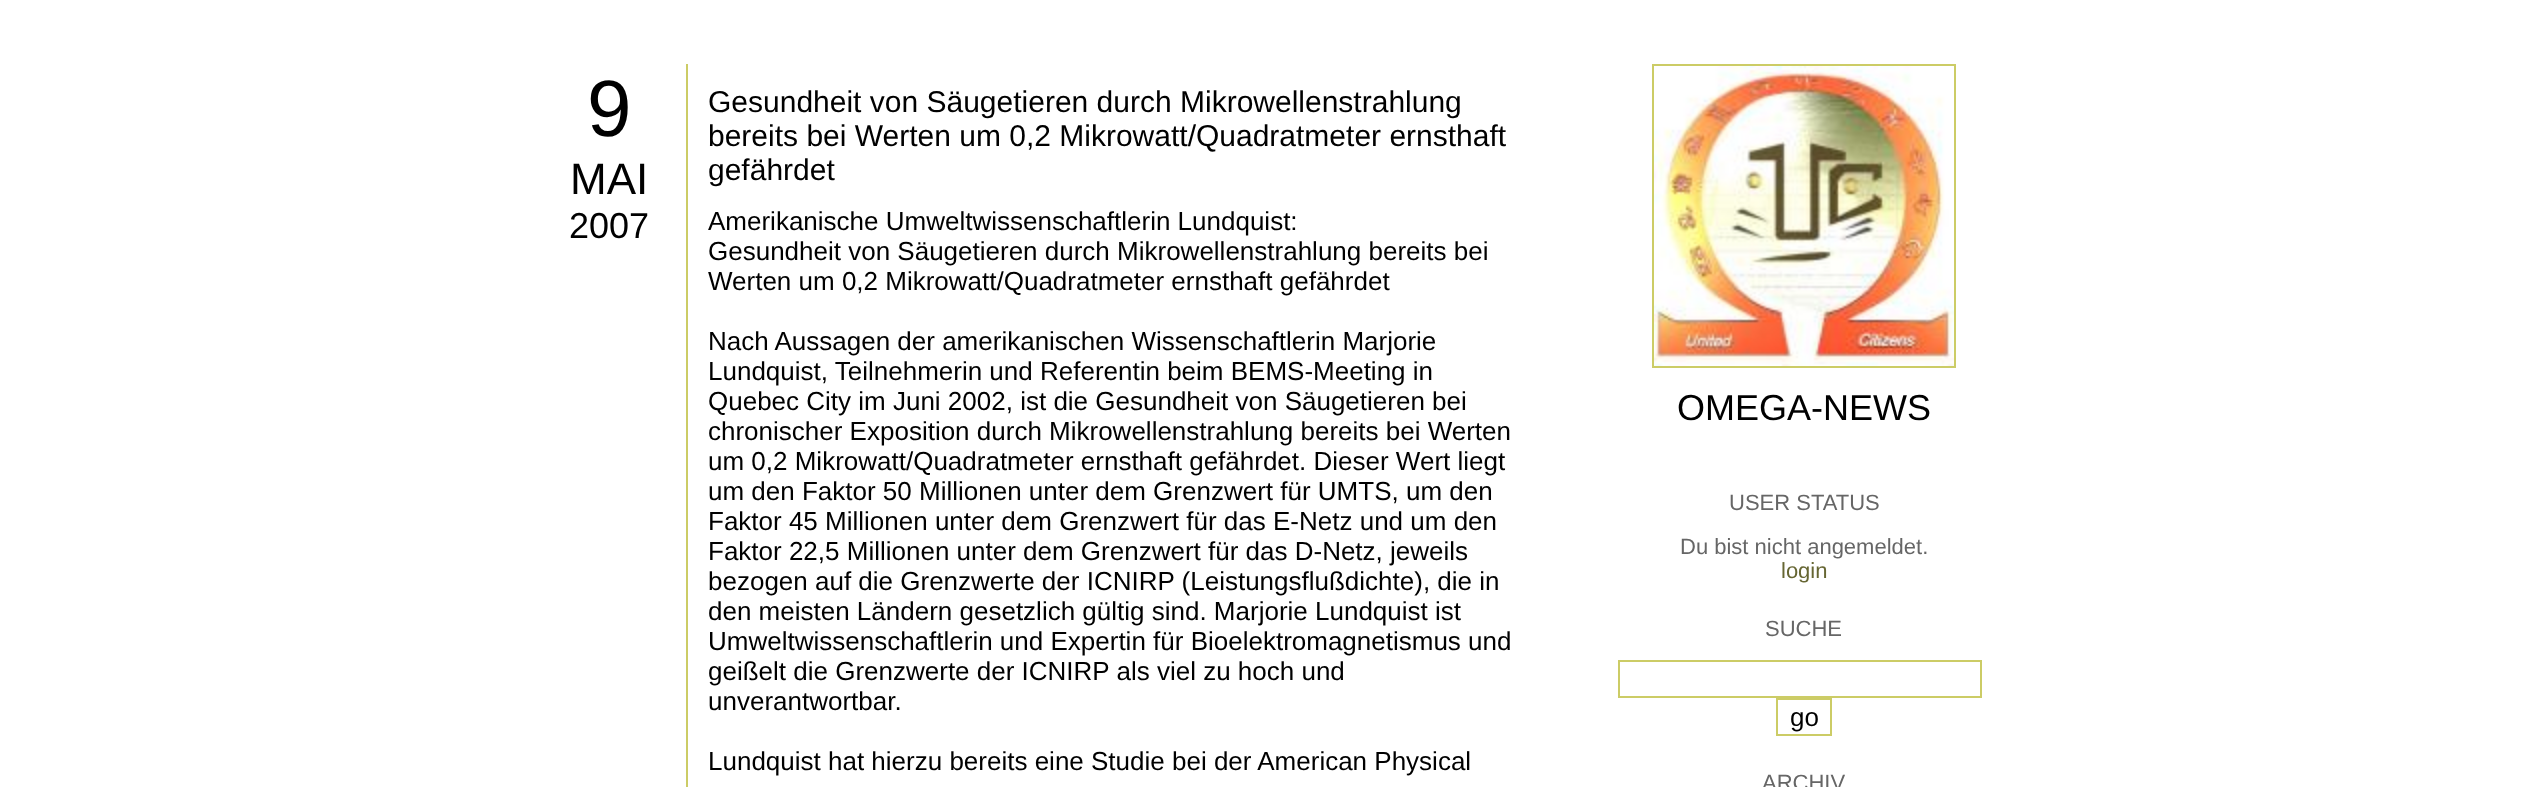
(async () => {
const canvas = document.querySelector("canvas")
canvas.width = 2547
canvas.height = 787
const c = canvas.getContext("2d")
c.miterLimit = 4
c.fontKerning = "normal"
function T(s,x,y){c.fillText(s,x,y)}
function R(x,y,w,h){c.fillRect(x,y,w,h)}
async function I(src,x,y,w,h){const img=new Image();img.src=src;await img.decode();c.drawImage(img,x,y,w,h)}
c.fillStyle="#fff"
R(0,0,2547,787)
c.font="80px Liberation Sans"
c.fillStyle="#000"
T("9",587,136)
c.font="44px Liberation Sans"
T("MAI",570,194)
c.font="36px Liberation Sans"
T("2007",569,238)
c.fillStyle="#cc6"
R(686,64,2,723)
c.font="30px Liberation Sans"
c.fillStyle="#000"
T("Gesundheit von Säugetieren durch Mikrowellenstrahlung",708,112)
T("bereits bei Werten um 0,2 Mikrowatt/Quadratmeter ernsthaft",708,146)
T("gefährdet",708,180)
c.font="26px Liberation Sans"
T("Amerikanische Umweltwissenschaftlerin Lundquist:",708,230)
T("Gesundheit von Säugetieren durch Mikrowellenstrahlung bereits bei",708,260)
T("Werten um 0,2 Mikrowatt/Quadratmeter ernsthaft gefährdet",708,290)
T("Nach Aussagen der amerikanischen Wissenschaftlerin Marjorie",708,350)
T("Lundquist, Teilnehmerin und Referentin beim BEMS-Meeting in",708,380)
T("Quebec City im Juni 2002, ist die Gesundheit von Säugetieren bei",708,410)
T("chronischer Exposition durch Mikrowellenstrahlung bereits bei Werten",708,440)
T("um 0,2 Mikrowatt/Quadratmeter ernsthaft gefährdet. Dieser Wert liegt",708,470)
T("um den Faktor 50 Millionen unter dem Grenzwert für UMTS, um den",708,500)
T("Faktor 45 Millionen unter dem Grenzwert für das E-Netz und um den",708,530)
T("Faktor 22,5 Millionen unter dem Grenzwert für das D-Netz, jeweils",708,560)
T("bezogen auf die Grenzwerte der ICNIRP (Leistungsflußdichte), die in",708,590)
T("den meisten Ländern gesetzlich gültig sind. Marjorie Lundquist ist",708,620)
T("Umweltwissenschaftlerin und Expertin für Bioelektromagnetismus und",708,650)
T("geißelt die Grenzwerte der ICNIRP als viel zu hoch und",708,680)
T("unverantwortbar.",708,710)
T("Lundquist hat hierzu bereits eine Studie bei der American Physical",708,770)
c.strokeStyle="#cc6"
c.lineWidth=2
c.strokeRect(1653,65,302,302)
await I("1.png",1654,66,300,300)
c.font="36px Liberation Sans"
T("OMEGA-NEWS",1677,420)
c.font="22px Liberation Sans"
c.fillStyle="#666"
T("USER STATUS",1729,510)
T("Du bist nicht angemeldet.",1680,554)
c.fillStyle="#663"
T("login",1781,578)
c.fillStyle="#666"
T("SUCHE",1765,636)
c.strokeRect(1619,661,362,36)
c.strokeRect(1777,699,54,36)
c.font="26px Liberation Sans"
c.fillStyle="#000"
T("go",1790,726)
c.font="22px Liberation Sans"
c.fillStyle="#666"
T("ARCHIV",1762,790)
})()
